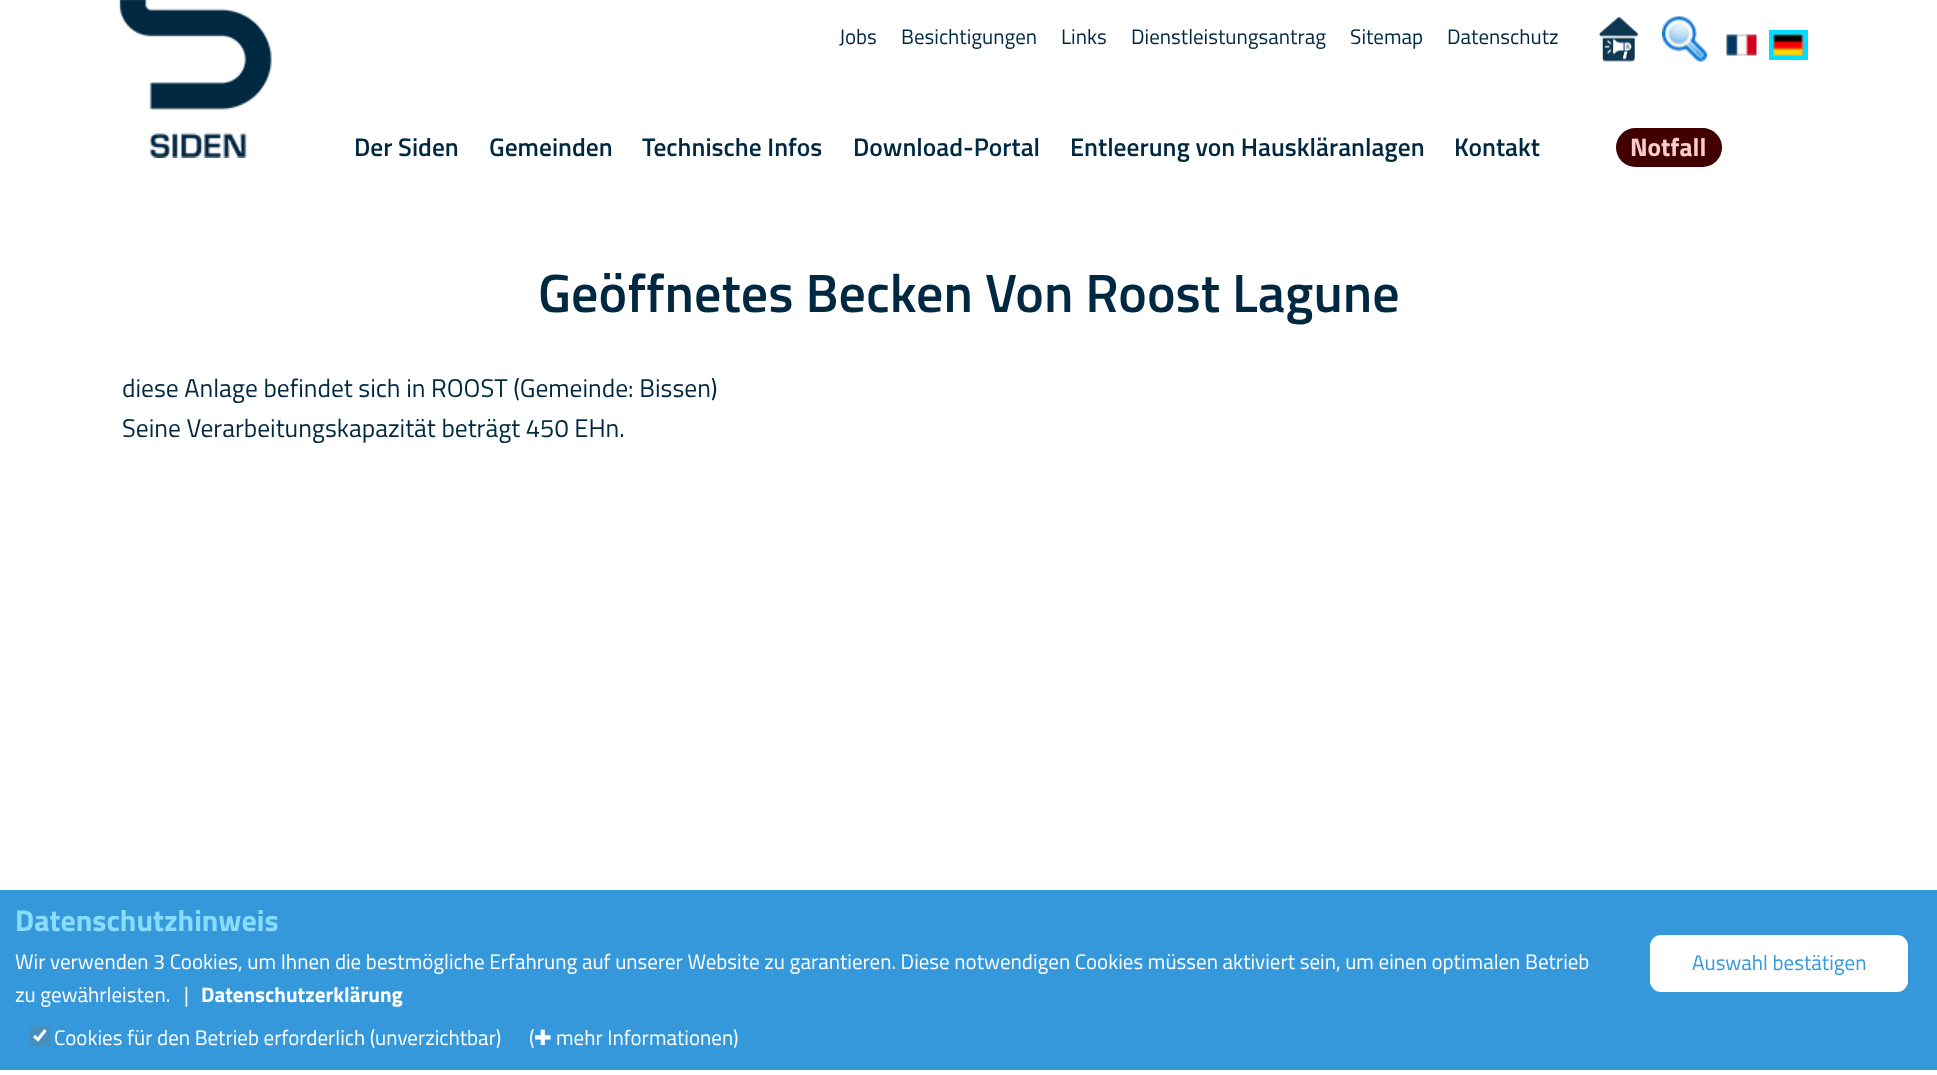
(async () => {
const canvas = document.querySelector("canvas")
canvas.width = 1937
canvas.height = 1075
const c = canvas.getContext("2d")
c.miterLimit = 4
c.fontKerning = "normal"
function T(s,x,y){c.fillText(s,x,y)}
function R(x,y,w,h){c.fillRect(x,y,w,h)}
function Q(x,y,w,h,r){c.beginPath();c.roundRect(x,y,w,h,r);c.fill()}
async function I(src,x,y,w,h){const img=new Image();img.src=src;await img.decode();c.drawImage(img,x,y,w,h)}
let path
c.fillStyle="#fff"
R(0,0,1937,1075)
c.fillStyle="#002841"
R(118,0,154,158)
await I("1.png",114,0,225,158)
c.font="21px Titillium Web"
T("Jobs",839,44)
T("Besichtigungen",901,44)
T("Links",1061,44)
T("Dienstleistungsantrag",1131,44)
T("Sitemap",1350,44)
T("Datenschutz",1447,44)
await I("2.png",1599,16,39,46)
await I("3.png",1662,16,45,46)
await I("4.png",1726,34,31,22)
c.strokeStyle="#0df"
c.lineWidth=5
c.strokeRect(1771.5,32.5,34,25)
await I("5.png",1773,34,30,22)
c.font="600 25.5px Titillium Web"
T("Der Siden",354,156)
T("Gemeinden",489,156)
T("Technische Infos",642,156)
T("Download-Portal",853,156)
T("Entleerung von Hauskläranlagen",1070,156)
T("Kontakt",1454,156)
c.fillStyle="#400000"
Q(1616,128,106,39,19.5)
c.font="bold 25.5px Titillium Web"
c.fillStyle="#fcc"
T("Notfall",1630,156)
c.font="600 54px Titillium Web"
c.fillStyle="#002841"
T("Geöffnetes Becken Von Roost Lagune",538,312)
c.font="25.5px Titillium Web"
T("diese Anlage befindet sich in ROOST (Gemeinde: Bissen)",122,397)
T("Seine Verarbeitungskapazität beträgt 450 EHn.",122,437)
c.fillStyle="#3498db"
R(0,890,1937,180)
c.font="bold 30px Titillium Web"
c.fillStyle="#8df"
T("Datenschutzhinweis",15,931)
c.font="21px Titillium Web"
c.fillStyle="#fff"
T("Wir verwenden 3 Cookies, um Ihnen die bestmögliche Erfahrung auf unserer Website zu garantieren. Diese notwendigen Cookies müssen aktiviert sein, um einen optimalen Betrieb",15,969)
T("zu gewährleisten.",15,1002)
T("|",184,1002)
c.font="bold 21px Titillium Web"
T("Datenschutzerklärung",201,1002)
c.fillStyle="#488ebd"
Q(30,1026,20,20,3)
path = new Path2D("M34 1036l4 3.5l7.5-9.5")
c.strokeStyle="#fff"
c.lineWidth=3.1
c.stroke(path)
c.font="21px Titillium Web"
c.fillStyle="#fff"
T("Cookies für den Betrieb erforderlich (unverzichtbar)",54,1045)
T("(",529,1045)
c.font="21px DejaVu Sans"
T("✚",534,1045)
c.font="21px Titillium Web"
T("mehr Informationen)",556,1045)
Q(1650,935,258,57,11)
c.fillStyle="#3498db"
T("Auswahl bestätigen",1692,970)
})()
